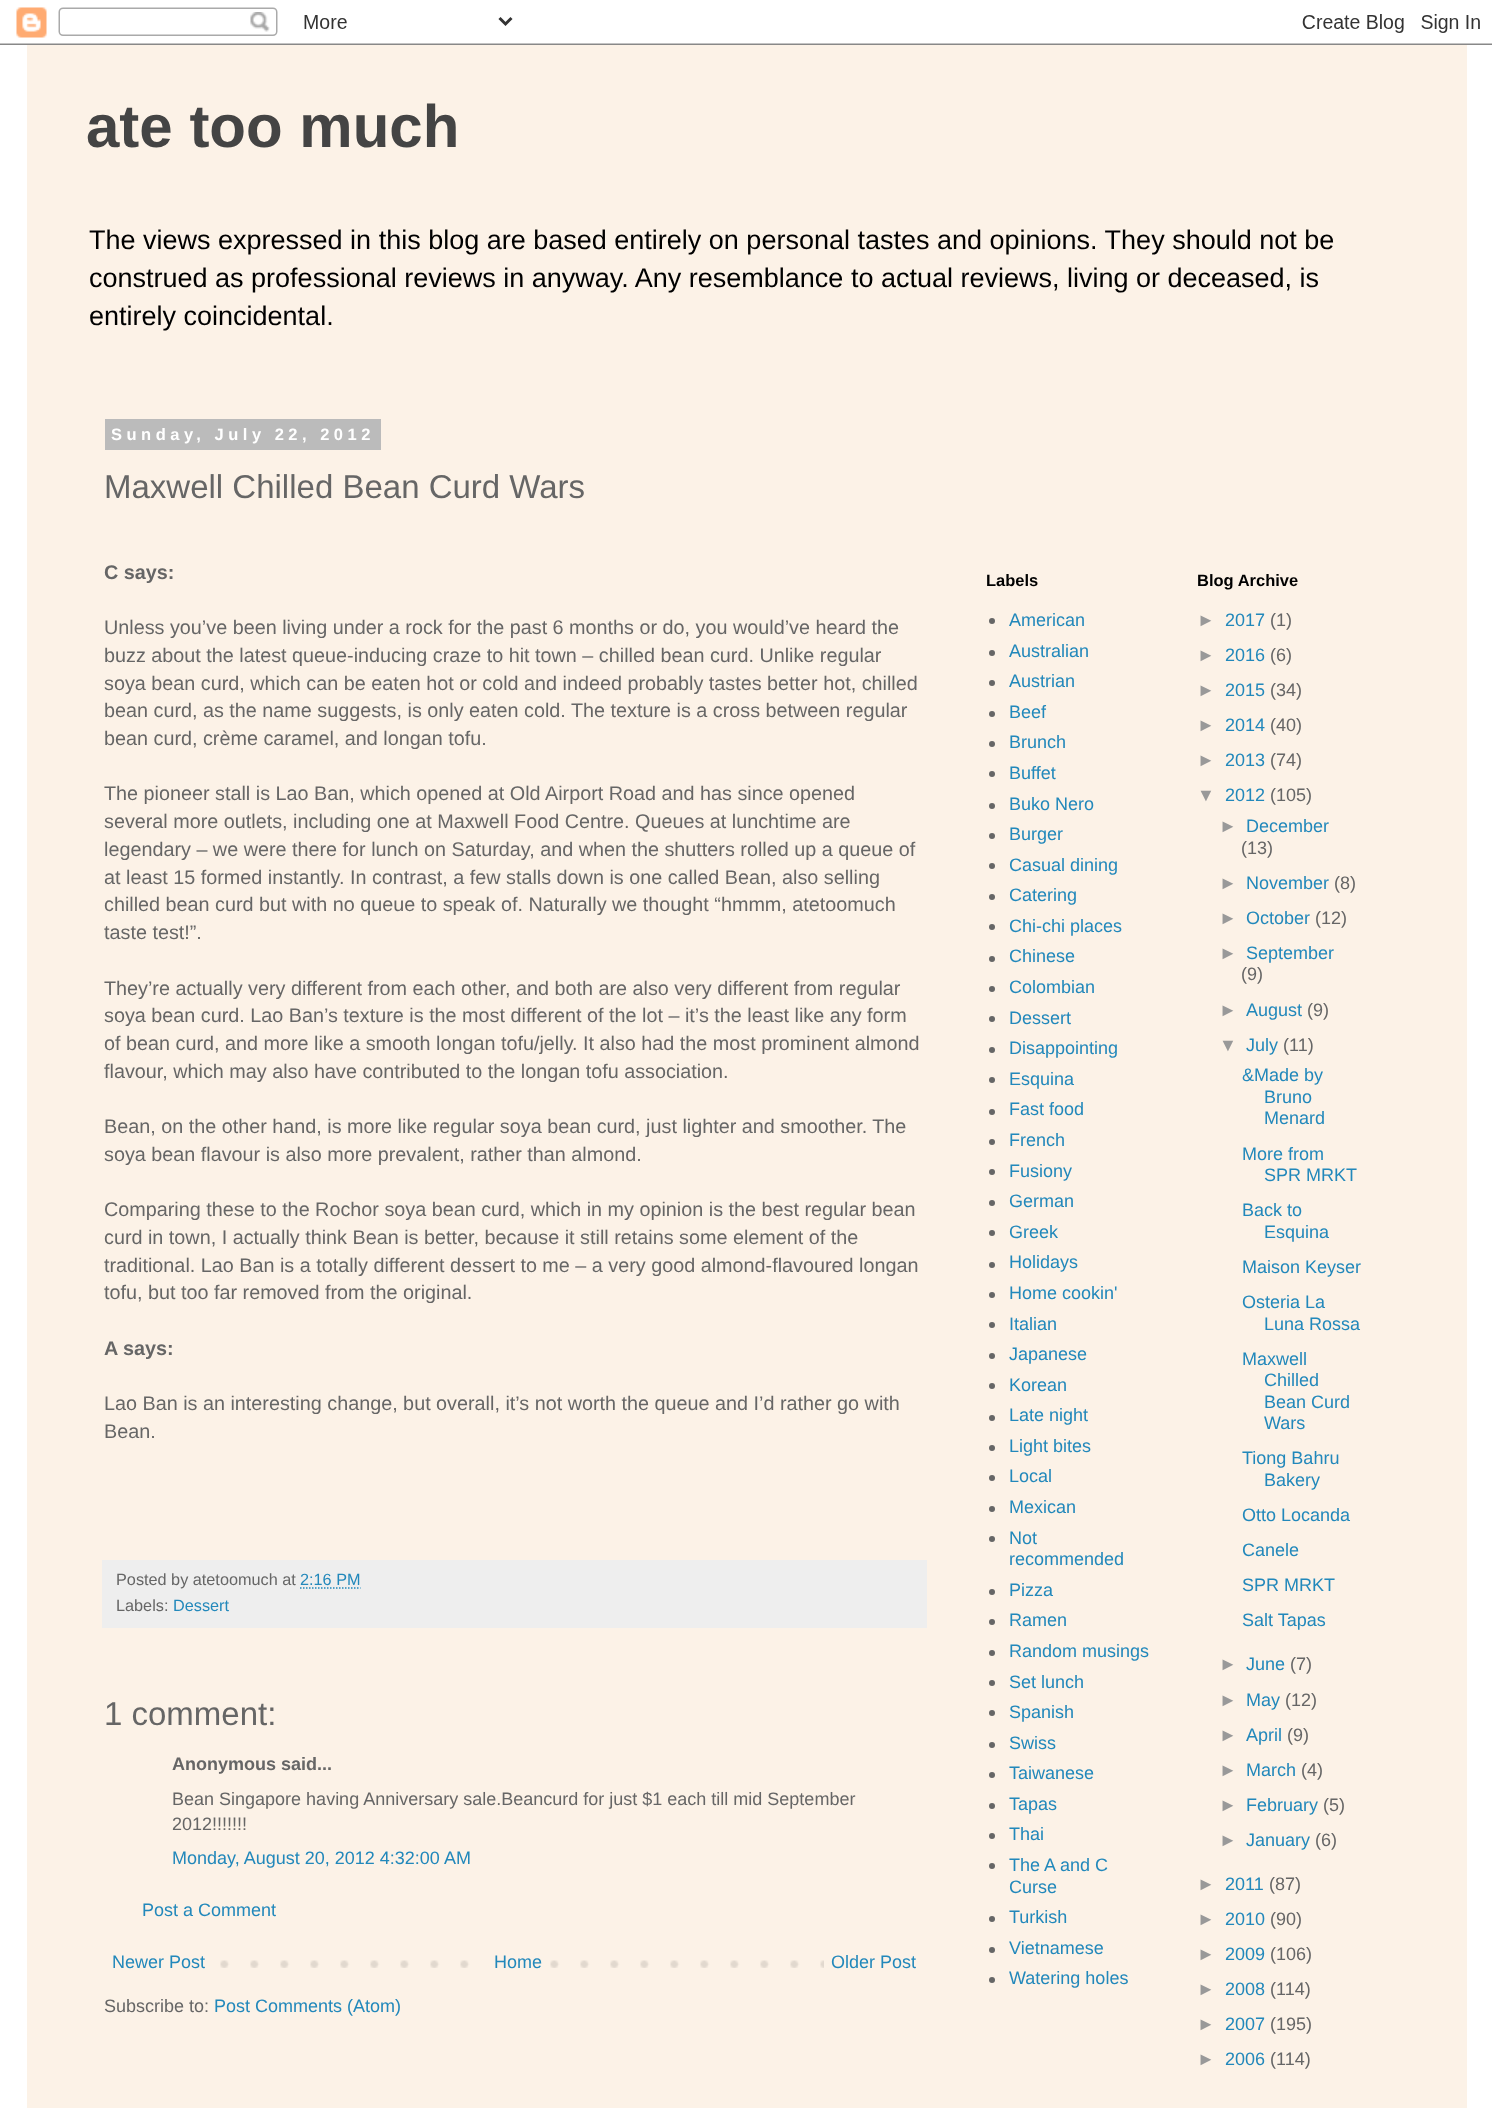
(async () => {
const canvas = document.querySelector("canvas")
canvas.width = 1492
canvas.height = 2108
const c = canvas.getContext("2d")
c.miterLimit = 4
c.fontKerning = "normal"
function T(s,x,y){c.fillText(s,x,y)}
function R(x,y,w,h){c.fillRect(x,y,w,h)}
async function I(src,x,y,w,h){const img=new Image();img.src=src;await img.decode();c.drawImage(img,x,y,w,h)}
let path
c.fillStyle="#fff"
R(0,0,1492,2108)
await I("1.png",0,7,1492,38)
c.fillStyle="#fcf2e7"
R(27,45,1440,2063)
c.font="bold 60px Liberation Sans"
c.fillStyle="#444"
T("ate too much",86,147)
c.font="27px Liberation Sans"
c.fillStyle="#000"
T("The views expressed in this blog are based entirely on personal tastes and opinions. They should not be",89,249)
T("construed as professional reviews in anyway. Any resemblance to actual reviews, living or deceased, is",89,287)
T("entirely coincidental.",89,325)
c.fillStyle="#bbb"
R(105,419,276,31)
c.letterSpacing="4.5px"
c.font="bold 16.5px Liberation Sans"
c.fillStyle="#fff"
T("Sunday, July 22, 2012",111,440)
c.letterSpacing="0px"
c.font="33px Liberation Sans"
c.fillStyle="#666"
T("Maxwell Chilled Bean Curd Wars",104,498)
c.font="bold 19.8px Liberation Sans"
T("C says:",104,579)
c.font="19.8px Liberation Sans"
T("Unless you’ve been living under a rock for the past 6 months or do, you would’ve heard the",104,634)
T("buzz about the latest queue-inducing craze to hit town – chilled bean curd. Unlike regular",104,662)
T("soya bean curd, which can be eaten hot or cold and indeed probably tastes better hot, chilled",104,690)
T("bean curd, as the name suggests, is only eaten cold. The texture is a cross between regular",104,717)
T("bean curd, crème caramel, and longan tofu.",104,745)
T("The pioneer stall is Lao Ban, which opened at Old Airport Road and has since opened",104,800)
T("several more outlets, including one at Maxwell Food Centre. Queues at lunchtime are",104,828)
T("legendary – we were there for lunch on Saturday, and when the shutters rolled up a queue of",104,856)
T("at least 15 formed instantly. In contrast, a few stalls down is one called Bean, also selling",104,884)
T("chilled bean curd but with no queue to speak of. Naturally we thought “hmmm, atetoomuch",104,911)
T("taste test!”.",104,939)
T("They’re actually very different from each other, and both are also very different from regular",104,995)
T("soya bean curd. Lao Ban’s texture is the most different of the lot – it’s the least like any form",104,1022)
T("of bean curd, and more like a smooth longan tofu/jelly. It also had the most prominent almond",104,1050)
T("flavour, which may also have contributed to the longan tofu association.",104,1078)
T("Bean, on the other hand, is more like regular soya bean curd, just lighter and smoother. The",104,1133)
T("soya bean flavour is also more prevalent, rather than almond.",104,1161)
T("Comparing these to the Rochor soya bean curd, which in my opinion is the best regular bean",104,1216)
T("curd in town, I actually think Bean is better, because it still retains some element of the",104,1244)
T("traditional. Lao Ban is a totally different dessert to me – a very good almond-flavoured longan",104,1272)
T("tofu, but too far removed from the original.",104,1299)
c.font="bold 19.8px Liberation Sans"
T("A says:",104,1355)
c.font="19.8px Liberation Sans"
T("Lao Ban is an interesting change, but overall, it’s not worth the queue and I’d rather go with",104,1410)
T("Bean.",104,1438)
c.fillStyle="#eee"
R(102,1560,825,68)
c.font="16.25px Liberation Sans"
c.fillStyle="#666"
T("Posted by atetoomuch at",116,1585)
c.fillStyle="#28b"
T("2:16 PM",300,1585)
path = new Path2D("M300 1588h60.5")
c.strokeStyle="#28b"
c.lineWidth=1.5
c.setLineDash([1.5,1.5])
c.stroke(path)
c.fillStyle="#666"
T("Labels:",116,1611)
c.fillStyle="#28b"
T("Dessert",173,1611)
c.font="33px Liberation Sans"
c.fillStyle="#666"
T("1 comment:",104,1725)
c.font="bold 18px Liberation Sans"
T("Anonymous said...",172,1770)
c.font="18px Liberation Sans"
T("Bean Singapore having Anniversary sale.Beancurd for just $1 each till mid September",172,1805)
T("2012!!!!!!!",172,1830)
c.fillStyle="#28b"
T("Monday, August 20, 2012 4:32:00 AM",172,1864)
T("Post a Comment",142,1916)
await I("2.png",220,1960,604,8)
T("Newer Post",112,1968)
c.fillStyle="#fcf2e7"
R(490,1960,39,8)
c.fillStyle="#28b"
T("Home",494,1968)
T("Older Post",831,1968)
c.fillStyle="#666"
T("Subscribe to:",104,2012)
c.fillStyle="#28b"
T("Post Comments (Atom)",214,2012)
c.font="bold 16.5px Liberation Sans"
c.fillStyle="#000"
T("Labels",986,586)
c.fillStyle="#666"
c.beginPath()
c.arc(992,621,3,0,7)
c.fill()
c.font="18px Liberation Sans"
c.fillStyle="#28b"
T("American",1009,626)
c.fillStyle="#666"
c.beginPath()
c.arc(992,653,3,0,7)
c.fill()
c.fillStyle="#28b"
T("Australian",1009,657)
c.fillStyle="#666"
c.beginPath()
c.arc(992,683,3,0,7)
c.fill()
c.fillStyle="#28b"
T("Austrian",1009,687)
c.fillStyle="#666"
c.beginPath()
c.arc(992,714,3,0,7)
c.fill()
c.fillStyle="#28b"
T("Beef",1009,718)
c.fillStyle="#666"
c.beginPath()
c.arc(992,744,3,0,7)
c.fill()
c.fillStyle="#28b"
T("Brunch",1009,748)
c.fillStyle="#666"
c.beginPath()
c.arc(992,774,3,0,7)
c.fill()
c.fillStyle="#28b"
T("Buffet",1009,779)
c.fillStyle="#666"
c.beginPath()
c.arc(992,806,3,0,7)
c.fill()
c.fillStyle="#28b"
T("Buko Nero",1009,810)
c.fillStyle="#666"
c.beginPath()
c.arc(992,836,3,0,7)
c.fill()
c.fillStyle="#28b"
T("Burger",1009,840)
c.fillStyle="#666"
c.beginPath()
c.arc(992,866,3,0,7)
c.fill()
c.fillStyle="#28b"
T("Casual dining",1009,871)
c.fillStyle="#666"
c.beginPath()
c.arc(992,897,3,0,7)
c.fill()
c.fillStyle="#28b"
T("Catering",1009,901)
c.fillStyle="#666"
c.beginPath()
c.arc(992,927,3,0,7)
c.fill()
c.fillStyle="#28b"
T("Chi-chi places",1009,932)
c.fillStyle="#666"
c.beginPath()
c.arc(992,959,3,0,7)
c.fill()
c.fillStyle="#28b"
T("Chinese",1009,962)
c.fillStyle="#666"
c.beginPath()
c.arc(992,989,3,0,7)
c.fill()
c.fillStyle="#28b"
T("Colombian",1009,993)
c.fillStyle="#666"
c.beginPath()
c.arc(992,1019,3,0,7)
c.fill()
c.fillStyle="#28b"
T("Dessert",1009,1024)
c.fillStyle="#666"
c.beginPath()
c.arc(992,1050,3,0,7)
c.fill()
c.fillStyle="#28b"
T("Disappointing",1009,1054)
c.fillStyle="#666"
c.beginPath()
c.arc(992,1080,3,0,7)
c.fill()
c.fillStyle="#28b"
T("Esquina",1009,1085)
c.fillStyle="#666"
c.beginPath()
c.arc(992,1112,3,0,7)
c.fill()
c.fillStyle="#28b"
T("Fast food",1009,1115)
c.fillStyle="#666"
c.beginPath()
c.arc(992,1142,3,0,7)
c.fill()
c.fillStyle="#28b"
T("French",1009,1146)
c.fillStyle="#666"
c.beginPath()
c.arc(992,1172,3,0,7)
c.fill()
c.fillStyle="#28b"
T("Fusiony",1009,1177)
c.fillStyle="#666"
c.beginPath()
c.arc(992,1203,3,0,7)
c.fill()
c.fillStyle="#28b"
T("German",1009,1207)
c.fillStyle="#666"
c.beginPath()
c.arc(992,1233,3,0,7)
c.fill()
c.fillStyle="#28b"
T("Greek",1009,1238)
c.fillStyle="#666"
c.beginPath()
c.arc(992,1265,3,0,7)
c.fill()
c.fillStyle="#28b"
T("Holidays",1009,1268)
c.fillStyle="#666"
c.beginPath()
c.arc(992,1295,3,0,7)
c.fill()
c.fillStyle="#28b"
T("Home cookin'",1009,1299)
c.fillStyle="#666"
c.beginPath()
c.arc(992,1325,3,0,7)
c.fill()
c.fillStyle="#28b"
T("Italian",1009,1330)
c.fillStyle="#666"
c.beginPath()
c.arc(992,1356,3,0,7)
c.fill()
c.fillStyle="#28b"
T("Japanese",1009,1360)
c.fillStyle="#666"
c.beginPath()
c.arc(992,1386,3,0,7)
c.fill()
c.fillStyle="#28b"
T("Korean",1009,1391)
c.fillStyle="#666"
c.beginPath()
c.arc(992,1418,3,0,7)
c.fill()
c.fillStyle="#28b"
T("Late night",1009,1421)
c.fillStyle="#666"
c.beginPath()
c.arc(992,1448,3,0,7)
c.fill()
c.fillStyle="#28b"
T("Light bites",1009,1452)
c.fillStyle="#666"
c.beginPath()
c.arc(992,1478,3,0,7)
c.fill()
c.fillStyle="#28b"
T("Local",1009,1482)
c.fillStyle="#666"
c.beginPath()
c.arc(992,1509,3,0,7)
c.fill()
c.fillStyle="#28b"
T("Mexican",1009,1513)
c.fillStyle="#666"
c.beginPath()
c.arc(992,1539,3,0,7)
c.fill()
c.fillStyle="#28b"
T("Not",1009,1544)
T("recommended",1009,1565)
c.fillStyle="#666"
c.beginPath()
c.arc(992,1592,3,0,7)
c.fill()
c.fillStyle="#28b"
T("Pizza",1009,1596)
c.fillStyle="#666"
c.beginPath()
c.arc(992,1622,3,0,7)
c.fill()
c.fillStyle="#28b"
T("Ramen",1009,1626)
c.fillStyle="#666"
c.beginPath()
c.arc(992,1653,3,0,7)
c.fill()
c.fillStyle="#28b"
T("Random musings",1009,1657)
c.fillStyle="#666"
c.beginPath()
c.arc(992,1683,3,0,7)
c.fill()
c.fillStyle="#28b"
T("Set lunch",1009,1688)
c.fillStyle="#666"
c.beginPath()
c.arc(992,1713,3,0,7)
c.fill()
c.fillStyle="#28b"
T("Spanish",1009,1718)
c.fillStyle="#666"
c.beginPath()
c.arc(992,1745,3,0,7)
c.fill()
c.fillStyle="#28b"
T("Swiss",1009,1749)
c.fillStyle="#666"
c.beginPath()
c.arc(992,1775,3,0,7)
c.fill()
c.fillStyle="#28b"
T("Taiwanese",1009,1779)
c.fillStyle="#666"
c.beginPath()
c.arc(992,1806,3,0,7)
c.fill()
c.fillStyle="#28b"
T("Tapas",1009,1810)
c.fillStyle="#666"
c.beginPath()
c.arc(992,1836,3,0,7)
c.fill()
c.fillStyle="#28b"
T("Thai",1009,1840)
c.fillStyle="#666"
c.beginPath()
c.arc(992,1866,3,0,7)
c.fill()
c.fillStyle="#28b"
T("The A and C",1009,1871)
T("Curse",1009,1893)
c.fillStyle="#666"
c.beginPath()
c.arc(992,1919,3,0,7)
c.fill()
c.fillStyle="#28b"
T("Turkish",1009,1923)
c.fillStyle="#666"
c.beginPath()
c.arc(992,1950,3,0,7)
c.fill()
c.fillStyle="#28b"
T("Vietnamese",1009,1954)
c.fillStyle="#666"
c.beginPath()
c.arc(992,1980,3,0,7)
c.fill()
c.fillStyle="#28b"
T("Watering holes",1009,1984)
c.font="bold 16.5px Liberation Sans"
c.fillStyle="#000"
T("Blog Archive",1197,586)
c.font="18px Liberation Sans"
c.fillStyle="#999"
T("►",1197,626)
c.fillStyle="#28b"
T("2017",1225,626)
c.fillStyle="#666"
T("(1)",1270,626)
c.fillStyle="#999"
T("►",1197,661)
c.fillStyle="#28b"
T("2016",1225,661)
c.fillStyle="#666"
T("(6)",1270,661)
c.fillStyle="#999"
T("►",1197,696)
c.fillStyle="#28b"
T("2015",1225,696)
c.fillStyle="#666"
T("(34)",1270,696)
c.fillStyle="#999"
T("►",1197,731)
c.fillStyle="#28b"
T("2014",1225,731)
c.fillStyle="#666"
T("(40)",1270,731)
c.fillStyle="#999"
T("►",1197,766)
c.fillStyle="#28b"
T("2013",1225,766)
c.fillStyle="#666"
T("(74)",1270,766)
c.fillStyle="#999"
T("▼",1197,801)
c.fillStyle="#28b"
T("2012",1225,801)
c.fillStyle="#666"
T("(105)",1270,801)
c.fillStyle="#999"
T("►",1219,832)
c.fillStyle="#28b"
T("December",1246,832)
c.fillStyle="#666"
T("(13)",1241,854)
c.fillStyle="#999"
T("►",1219,889)
c.fillStyle="#28b"
T("November",1246,889)
c.fillStyle="#666"
T("(8)",1334,889)
c.fillStyle="#999"
T("►",1219,924)
c.fillStyle="#28b"
T("October",1246,924)
c.fillStyle="#666"
T("(12)",1315,924)
c.fillStyle="#999"
T("►",1219,959)
c.fillStyle="#28b"
T("September",1246,959)
c.fillStyle="#666"
T("(9)",1241,980)
c.fillStyle="#999"
T("►",1219,1016)
c.fillStyle="#28b"
T("August",1246,1016)
c.fillStyle="#666"
T("(9)",1307,1016)
c.fillStyle="#999"
T("▼",1219,1051)
c.fillStyle="#28b"
T("July",1246,1051)
c.fillStyle="#666"
T("(11)",1283,1051)
c.fillStyle="#28b"
T("&Made by",1242,1081)
T("Bruno",1264,1103)
T("Menard",1264,1124)
T("More from",1242,1160)
T("SPR MRKT",1264,1181)
T("Back to",1242,1216)
T("Esquina",1264,1238)
T("Maison Keyser",1242,1273)
T("Osteria La",1242,1308)
T("Luna Rossa",1264,1330)
T("Maxwell",1242,1365)
T("Chilled",1264,1386)
T("Bean Curd",1264,1408)
T("Wars",1264,1429)
T("Tiong Bahru",1242,1464)
T("Bakery",1264,1486)
T("Otto Locanda",1242,1521)
T("Canele",1242,1556)
T("SPR MRKT",1242,1591)
T("Salt Tapas",1242,1626)
c.fillStyle="#999"
T("►",1219,1670)
c.fillStyle="#28b"
T("June",1246,1670)
c.fillStyle="#666"
T("(7)",1290,1670)
c.fillStyle="#999"
T("►",1219,1706)
c.fillStyle="#28b"
T("May",1246,1706)
c.fillStyle="#666"
T("(12)",1285,1706)
c.fillStyle="#999"
T("►",1219,1741)
c.fillStyle="#28b"
T("April",1246,1741)
c.fillStyle="#666"
T("(9)",1287,1741)
c.fillStyle="#999"
T("►",1219,1776)
c.fillStyle="#28b"
T("March",1246,1776)
c.fillStyle="#666"
T("(4)",1301,1776)
c.fillStyle="#999"
T("►",1219,1811)
c.fillStyle="#28b"
T("February",1246,1811)
c.fillStyle="#666"
T("(5)",1323,1811)
c.fillStyle="#999"
T("►",1219,1846)
c.fillStyle="#28b"
T("January",1246,1846)
c.fillStyle="#666"
T("(6)",1315,1846)
c.fillStyle="#999"
T("►",1197,1890)
c.fillStyle="#28b"
T("2011",1225,1890)
c.fillStyle="#666"
T("(87)",1269,1890)
c.fillStyle="#999"
T("►",1197,1925)
c.fillStyle="#28b"
T("2010",1225,1925)
c.fillStyle="#666"
T("(90)",1270,1925)
c.fillStyle="#999"
T("►",1197,1960)
c.fillStyle="#28b"
T("2009",1225,1960)
c.fillStyle="#666"
T("(106)",1270,1960)
c.fillStyle="#999"
T("►",1197,1995)
c.fillStyle="#28b"
T("2008",1225,1995)
c.fillStyle="#666"
T("(114)",1270,1995)
c.fillStyle="#999"
T("►",1197,2030)
c.fillStyle="#28b"
T("2007",1225,2030)
c.fillStyle="#666"
T("(195)",1270,2030)
c.fillStyle="#999"
T("►",1197,2065)
c.fillStyle="#28b"
T("2006",1225,2065)
c.fillStyle="#666"
T("(114)",1270,2065)
})()
